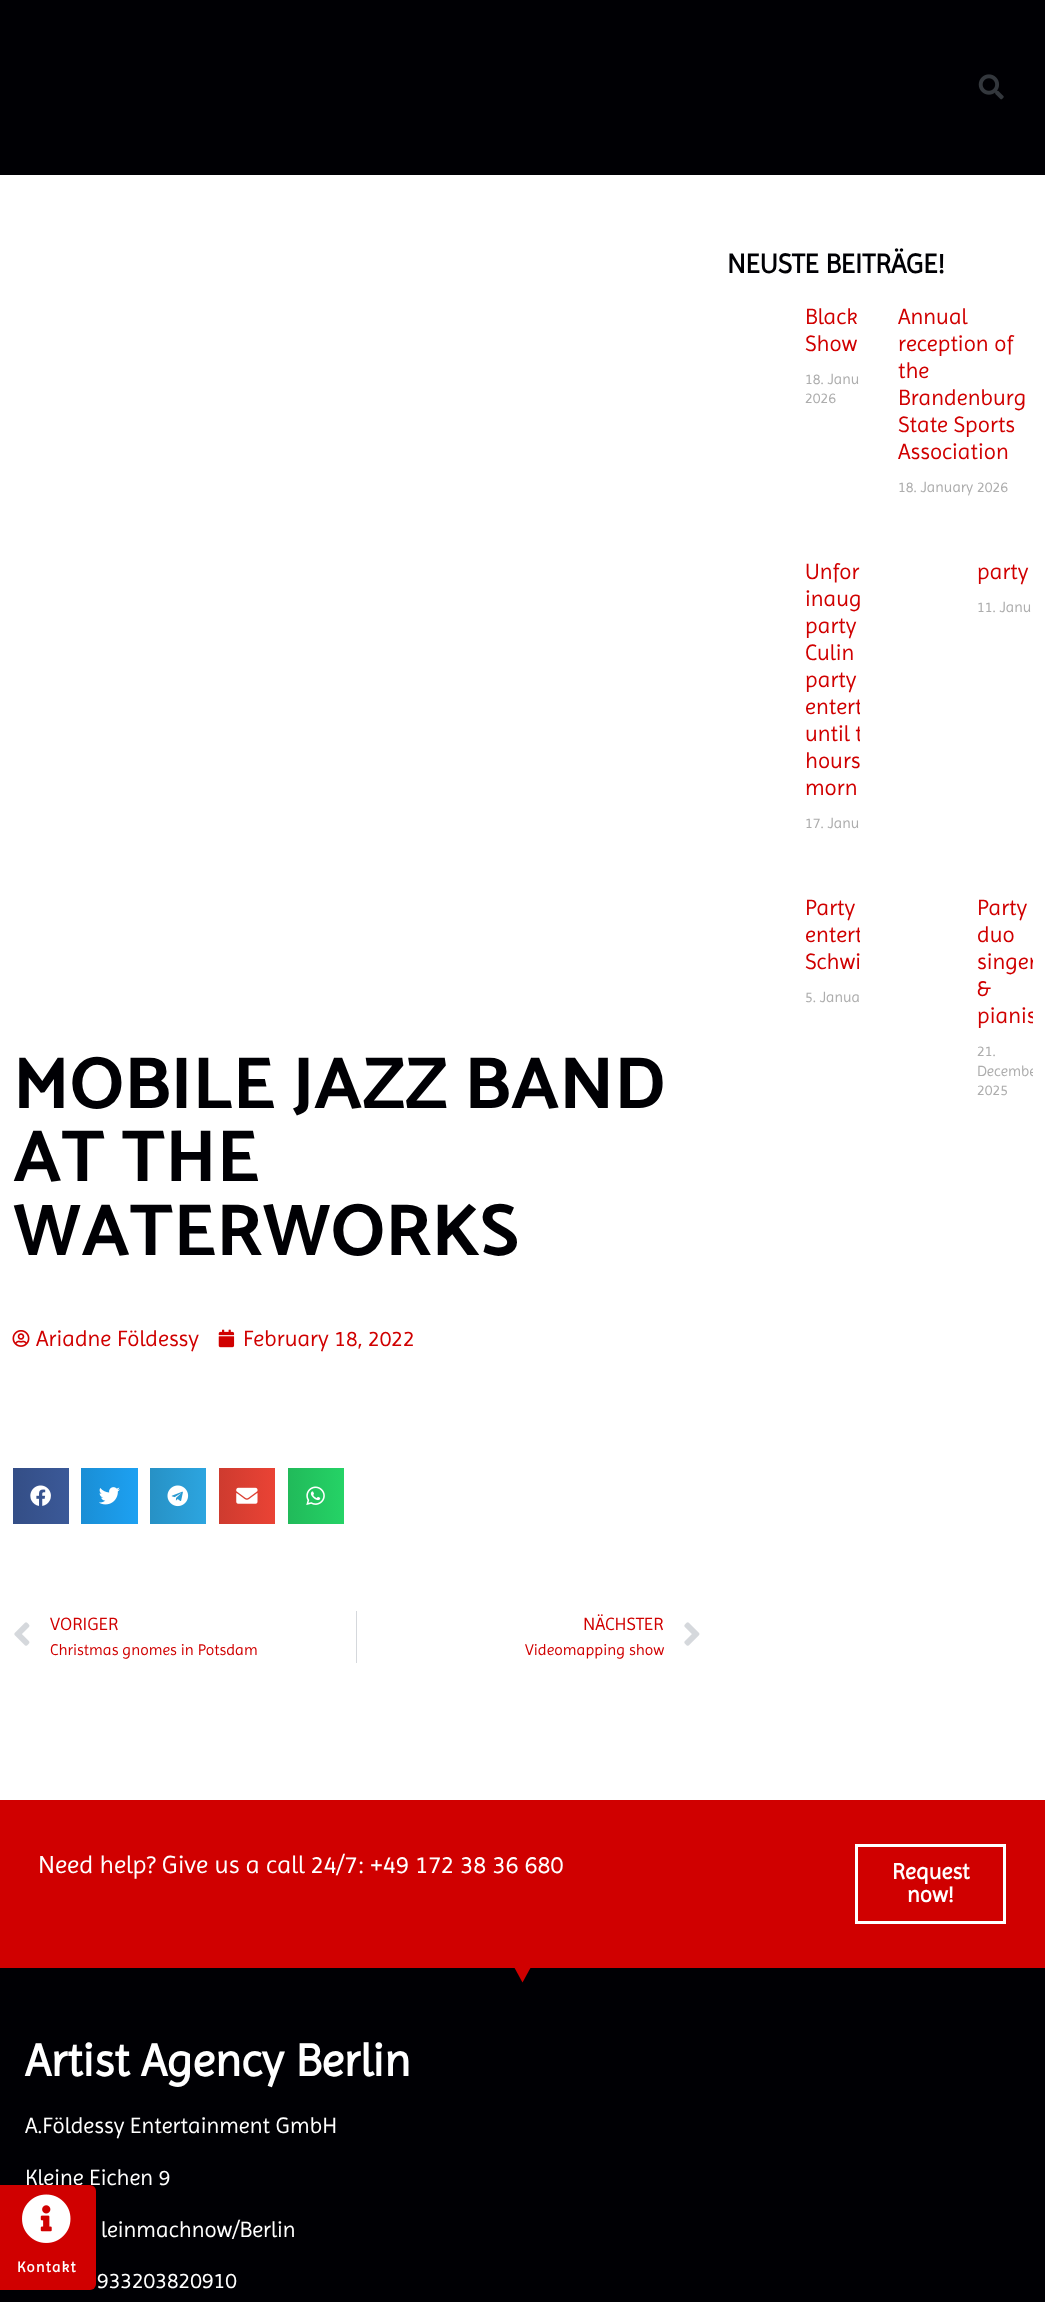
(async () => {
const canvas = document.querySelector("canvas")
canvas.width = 1045
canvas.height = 2302
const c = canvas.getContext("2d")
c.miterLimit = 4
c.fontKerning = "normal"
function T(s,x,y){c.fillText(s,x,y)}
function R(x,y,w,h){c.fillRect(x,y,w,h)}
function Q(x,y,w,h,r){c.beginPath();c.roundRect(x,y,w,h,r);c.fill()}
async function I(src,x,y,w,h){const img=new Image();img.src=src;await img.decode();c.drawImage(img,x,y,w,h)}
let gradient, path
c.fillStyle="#fff"
R(0,0,1045,2302)
c.font="bold 27.5px Imprima"
c.fillStyle="#000004"
T("NEUSTE BEITRÄGE!",727,273)
c.font="22.5px Imprima"
c.fillStyle="#d00000"
T("Black",805,324)
T("Show",805,351)
c.font="15px Imprima"
c.fillStyle="#adadad"
T("18. Janu",805,384)
T("2026",805,403)
c.font="22.5px Imprima"
c.fillStyle="#d00000"
T("Annual",898,324)
T("reception of",898,351)
T("the",898,378)
T("Brandenburg",898,405)
T("State Sports",898,432)
T("Association",898,459)
c.font="15px Imprima"
c.fillStyle="#adadad"
T("18. January 2026",898,492)
c.font="22.5px Imprima"
c.fillStyle="#d00000"
T("Unfor",805,579)
T("inaug",805,606)
T("party",805,633)
T("Culin",805,660)
T("party",805,687)
c.save()
c.beginPath()
c.rect(726,558,134,292)
c.clip()
T("entert",805,714)
T("until t",805,741)
c.restore()
T("hours",805,768)
T("morn",805,795)
c.font="15px Imprima"
c.fillStyle="#adadad"
T("17. Janu",805,828)
c.font="22.5px Imprima"
c.fillStyle="#d00000"
T("party",977,579)
c.font="15px Imprima"
c.fillStyle="#adadad"
T("11. Janu",977,612)
c.font="22.5px Imprima"
c.fillStyle="#d00000"
T("Party",805,915)
c.save()
c.beginPath()
c.rect(726,894,134,224)
c.clip()
T("entert",805,942)
c.restore()
T("Schwi",805,969)
c.font="15px Imprima"
c.fillStyle="#adadad"
T("5. Janua",805,1002)
c.font="22.5px Imprima"
c.fillStyle="#d00000"
T("Party",977,915)
T("duo",977,942)
c.save()
c.beginPath()
c.rect(898,894,135,224)
c.clip()
T("singer",977,969)
c.restore()
T("&",977,996)
c.save()
c.beginPath()
c.rect(898,894,135,224)
c.clip()
T("pianis",977,1023)
c.restore()
c.font="15px Imprima"
c.fillStyle="#adadad"
T("21.",977,1056)
c.save()
c.beginPath()
c.rect(898,894,135,224)
c.clip()
T("Decembe",977,1076)
c.restore()
T("2025",977,1095)
c.font="bold 73.75px Catamaran"
c.fillStyle="#000004"
T("MOBILE JAZZ BAND",13,1108)
T("AT THE",13,1181)
T("WATERWORKS",13,1255)
await I("1.png",12,1330,18,17)
c.font="22.5px Imprima"
c.fillStyle="#d00000"
T("Ariadne Földessy",36,1346)
await I("2.png",218,1329,17,19)
T("February 18, 2022",243,1346)
gradient = c.createLinearGradient(13,1496,69,1496)
gradient.addColorStop(0,"#344e86")
gradient.addColorStop(1,"#3b5998")
c.fillStyle = gradient
R(13,1468,56,56)
await I("3.png",30,1485,21,21)
gradient = c.createLinearGradient(81,1496,138,1496)
gradient.addColorStop(0,"#1a8ed5")
gradient.addColorStop(1,"#1da1f2")
c.fillStyle = gradient
R(81,1468,57,56)
await I("4.png",99,1487,21,18)
gradient = c.createLinearGradient(150,1496,206,1496)
gradient.addColorStop(0,"#2791c5")
gradient.addColorStop(1,"#2ca5e0")
c.fillStyle = gradient
R(150,1468,56,56)
await I("5.png",167,1485,22,22)
gradient = c.createLinearGradient(219,1496,275,1496)
gradient.addColorStop(0,"#ce3b2f")
gradient.addColorStop(1,"#ea4335")
c.fillStyle = gradient
R(219,1468,56,56)
await I("6.png",236,1487,22,17)
gradient = c.createLinearGradient(288,1496,344,1496)
gradient.addColorStop(0,"#21ba5a")
gradient.addColorStop(1,"#25d366")
c.fillStyle = gradient
R(288,1468,56,56)
await I("7.png",306,1486,19,19)
await I("8.png",14,1622,16,24)
c.font="18px Imprima"
c.fillStyle="#d00000"
T("VORIGER",50,1630)
c.font="15.75px Imprima"
T("Christmas gnomes in Potsdam",50,1655)
c.fillStyle="#d5d8dc"
R(356,1611,1,52)
c.font="18px Imprima"
c.fillStyle="#d00000"
T("NÄCHSTER",583,1630)
c.font="15.75px Imprima"
T("Videomapping show",525,1655)
await I("9.png",684,1622,16,24)
R(0,1800,1045,168)
c.font="25px Imprima"
c.fillStyle="#fff"
T("Need help? Give us a call 24/7: +49 172 38 36 680",38,1873)
c.strokeStyle="#fff"
c.lineWidth=3
c.strokeRect(856.5,1845.5,148,77)
c.font="bold 22.5px Imprima"
T("Request",892,1879)
T("now!",907,1902)
c.fillStyle="#000004"
R(0,1968,1045,334)
c.fillStyle="#d00000"
path = new Path2D("M522.5 1982.5l-9-16.5h18z")
c.fill(path)
c.font="bold 46.25px Imprima"
c.fillStyle="#fff"
T("Artist Agency Berlin",25,2076)
c.font="22.5px Imprima"
T("A.Földessy Entertainment GmbH",25,2133)
T("Kleine Eichen 9",25,2185)
T("leinmachnow/Berlin",101,2237)
T("933203820910",97,2288)
c.fillStyle="#000004"
R(0,0,1045,175)
await I("10.png",978,74,26,26)
c.fillStyle="#d00000"
Q(-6,2185,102,105,6)
await I("11.png",22,2194,49,49)
c.letterSpacing="1.25px"
c.font="bold 15px Imprima"
c.fillStyle="#fff"
T("Kontakt",17,2272)
})()
